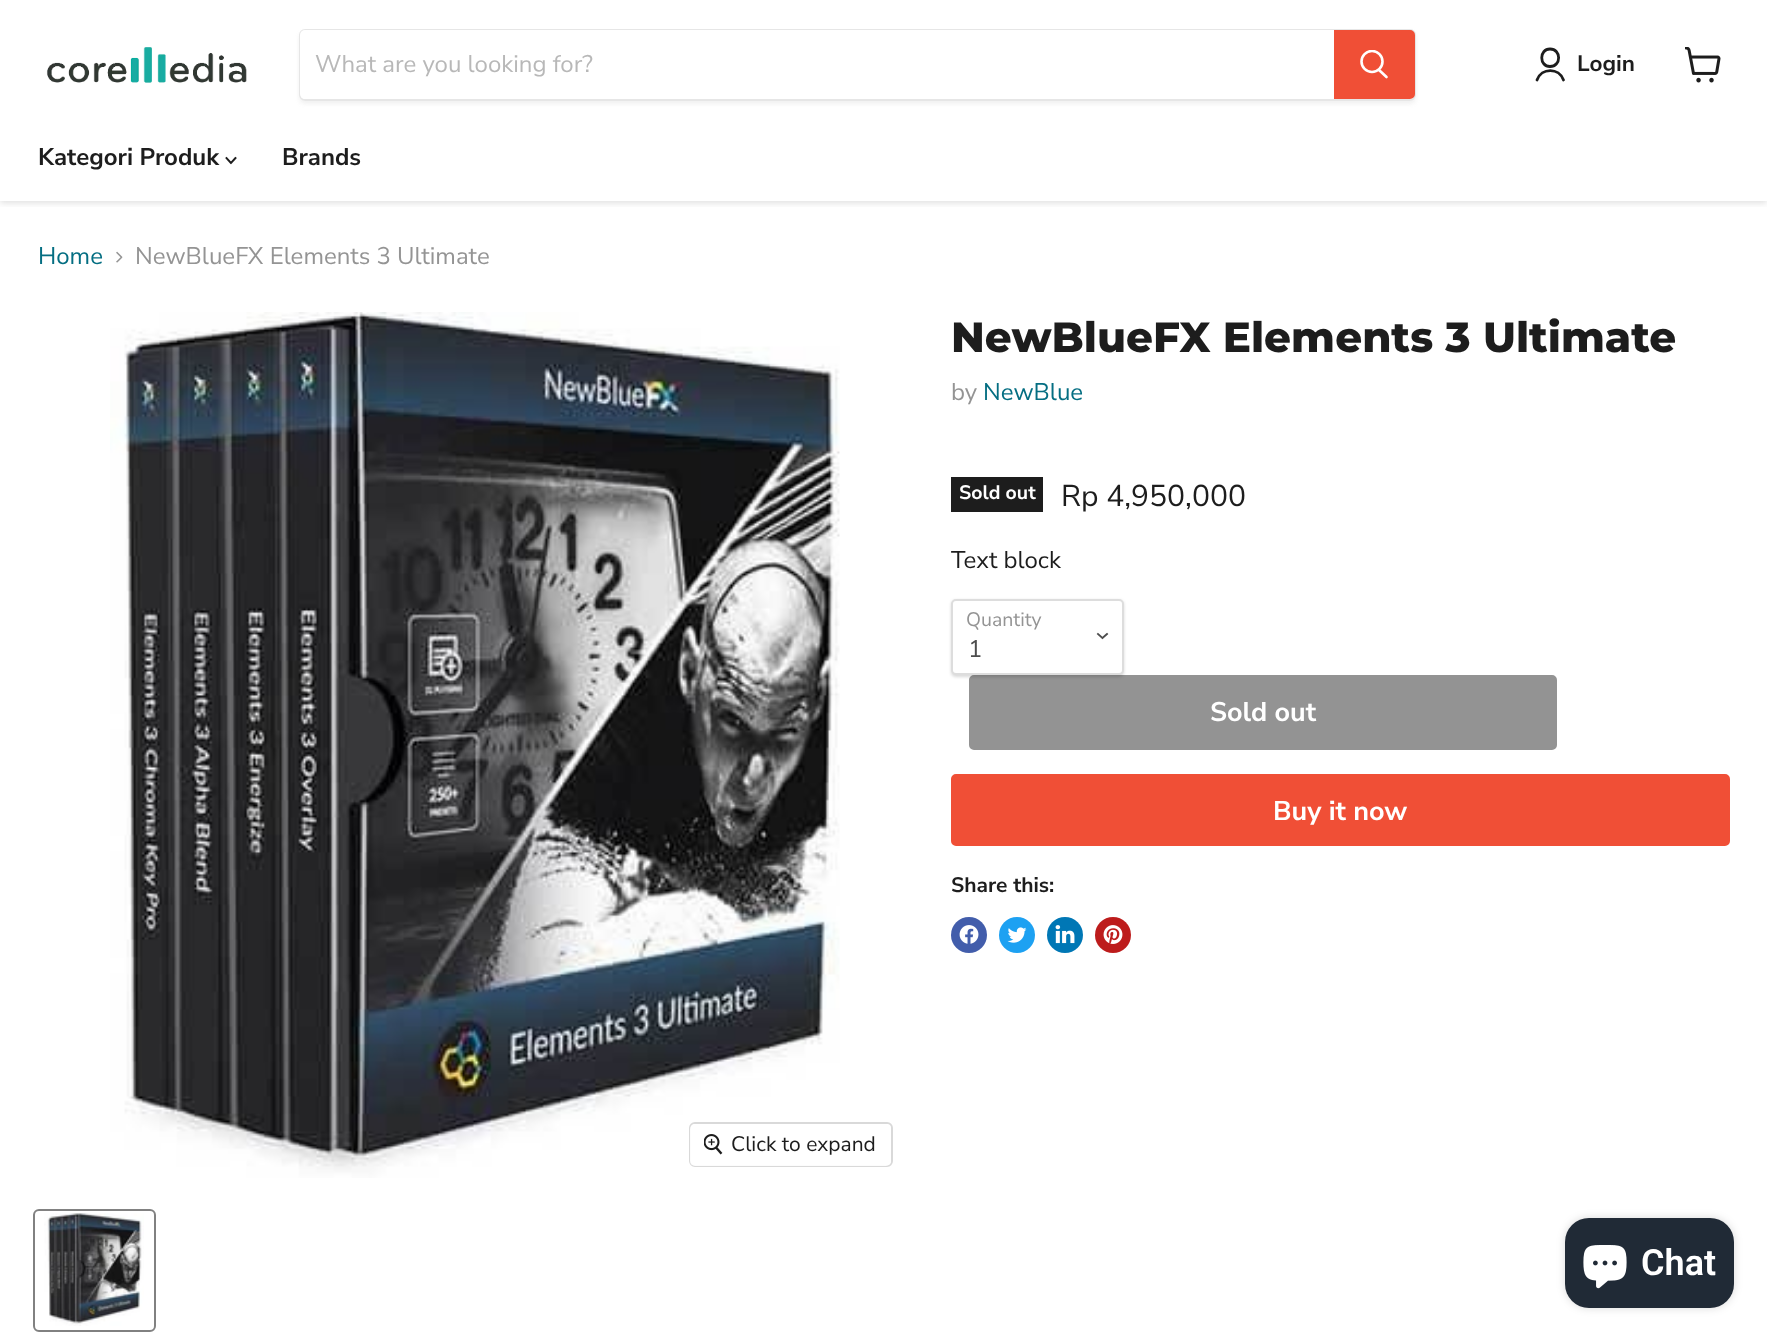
(async () => {
const canvas = document.querySelector("canvas")
canvas.width = 1767
canvas.height = 1339
const c = canvas.getContext("2d")
c.miterLimit = 4
c.fontKerning = "normal"
function T(s,x,y){c.fillText(s,x,y)}
function R(x,y,w,h){c.fillRect(x,y,w,h)}
function Q(x,y,w,h,r){c.beginPath();c.roundRect(x,y,w,h,r);c.fill()}
async function I(src,x,y,w,h){const img=new Image();img.src=src;await img.decode();c.drawImage(img,x,y,w,h)}
let path
c.fillStyle="#fff"
R(0,0,1767,1339)
c.save()
c.beginPath()
c.rect(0,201,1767,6)
c.clip()
c.fillStyle="#80808040"
c.filter="blur(3px)"
c.beginPath()
c.rect(0,2,1767,201)
c.fill()
c.filter="none"
c.restore()
await I("1.png",46,47,201,36)
c.save()
path = new Path2D("M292 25h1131v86h-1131zm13 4h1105c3.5 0 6 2.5 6 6v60c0 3.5-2.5 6-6 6h-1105c-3.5 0-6-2.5-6-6v-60c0-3.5 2.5-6 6-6z")
c.clip(path,"evenodd")
c.fillStyle="#8080801c"
c.filter="blur(2px)"
c.beginPath()
c.roundRect(299,32,1117,72,6)
c.fill()
c.filter="none"
c.restore()
c.beginPath()
c.roundRect(300,30,1115,70,5)
c.strokeStyle="#80808033"
c.lineWidth=2
c.stroke()
c.beginPath()
c.roundRect(300,30,1034,69,[5,0,0,5])
c.fill()
c.font="24px Nunito Sans"
c.fillStyle="#b8b8b8"
T("What are you looking for?",315,72)
c.fillStyle="#f04f36"
c.beginPath()
c.roundRect(1335,31,79,67,[0,4,4,0])
c.fill()
c.strokeStyle="#f04f36"
c.stroke()
path = new Path2D("M1386.5 77l-7.5-7")
c.strokeStyle="#fff"
c.lineWidth=2.6
c.lineCap="round"
c.stroke(path)
c.save()
c.beginPath()
c.rect(1359,50,30,31)
c.clip()
c.beginPath()
c.arc(1372,61.5,10.5,0,7)
c.stroke()
c.restore()
path = new Path2D("M1550 66.5c11.5 0 11.5-17.5 0-17.5c-11 0-11 17.5 0 17.5zm13.5 13.5c-4.5-12.5-22-12.5-26.5 0")
c.strokeStyle="#1d1d1d"
c.lineWidth=2.8
c.lineJoin="round"
c.stroke(path)
c.font="bold 22.5px Nunito Sans"
c.fillStyle="#1d1d1d"
T("Login",1577,71)
await I("2.png",1685,47,36,36)
c.font="bold 24px Nunito Sans"
T("Kategori Produk",38,165)
path = new Path2D("M231 163l4.5-5m-4.5 5l-4.5-5")
c.lineWidth=1.9
c.lineCap="square"
c.lineJoin="miter"
c.stroke(path)
T("Brands",282,165)
c.font="24px Nunito Sans"
c.fillStyle="#046e82"
T("Home",38,264)
await I("3.png",116,251,7,12)
c.fillStyle="#949494"
T("NewBlueFX Elements 3 Ultimate",135,264)
c.font="800 42px Montserrat"
c.fillStyle="#1d1d1d"
T("NewBlueFX Elements 3 Ultimate",951,352)
c.font="24px Nunito Sans"
c.fillStyle="#949494"
T("by",951,400)
c.fillStyle="#046e82"
T("NewBlue",983,400)
c.fillStyle="#1d1d1d"
R(951,477,92,35)
c.font="bold 19.5px Nunito Sans"
c.fillStyle="#fff"
T("Sold out",959,499)
c.font="30px Nunito Sans"
c.fillStyle="#1d1d1d"
T("Rp 4,950,000",1061,506)
c.font="24px Nunito Sans"
T("Text block",951,568)
c.fillStyle="#939393"
c.beginPath()
c.roundRect(970,676,586,73,4)
c.fill()
c.strokeStyle="#939393"
c.lineWidth=2
c.stroke()
c.fillStyle="#00000026"
c.filter="blur(1.5px)"
c.beginPath()
c.roundRect(951,600,173,77,5)
c.fill()
c.filter="none"
c.fillStyle="#fff"
c.beginPath()
c.roundRect(952,600,171,74,4)
c.fill()
c.strokeStyle="#ddd"
c.stroke()
c.font="19.5px Nunito Sans"
c.fillStyle="#949494"
T("Quantity",966,626)
path = new Path2D("M1102.5 638l4.5-4m-4.5 4l-4.5-4")
c.strokeStyle="#4d4d4d"
c.lineWidth=1.9
c.stroke(path)
c.font="24px Nunito Sans"
c.fillStyle="#4d4d4d"
T("1",968,657)
c.font="bold 27px Nunito Sans"
c.fillStyle="#fff"
T("Sold out",1210,721)
c.fillStyle="#f04f36"
c.beginPath()
c.roundRect(952,775,777,70,4)
c.fill()
c.strokeStyle="#f04f36"
c.lineWidth=2
c.stroke()
c.fillStyle="#fff"
T("Buy it now",1273,820)
c.font="bold 21px Nunito Sans"
c.fillStyle="#1d1d1d"
T("Share this:",951,892)
c.fillStyle="#425dab"
c.beginPath()
c.arc(969,935,18,0,7)
c.fill()
await I("4.png",959,925,20,19)
c.fillStyle="#1da1f2"
c.beginPath()
c.arc(1017,935,18,0,7)
c.fill()
await I("5.png",1007,927,20,16)
c.fillStyle="#0077b5"
c.beginPath()
c.arc(1065,935,18,0,7)
c.fill()
await I("6.png",1055,925,20,19)
c.fillStyle="#bd1c1c"
c.beginPath()
c.arc(1113,935,18,0,7)
c.fill()
await I("7.png",1103,925,20,19)
await I("8.png",110,312,730,866)
c.beginPath()
c.roundRect(690,1123,202,43,5)
c.strokeStyle="#d9d9d9"
c.stroke()
c.fillStyle="#ffffffe6"
Q(690,1124,201,42,5)
await I("9.png",704,1134,19,21)
c.font="21px Nunito Sans"
c.fillStyle="#1d1d1d"
T("Click to expand",731,1151)
c.beginPath()
c.roundRect(34,1210,121,121,5)
c.strokeStyle="#818181"
c.stroke()
await I("10.png",44,1213,100,113)
c.fillStyle="#00000026"
c.filter="blur(4px)"
c.beginPath()
c.roundRect(1565,1218,169,90,24)
c.fill()
c.filter="none"
c.fillStyle="#202a36"
Q(1565,1218,169,90,24)
await I("11.png",1583,1245,44,44)
c.font="600 36px Roboto"
c.fillStyle="#fff"
T("Chat",1641,1275)
})()
